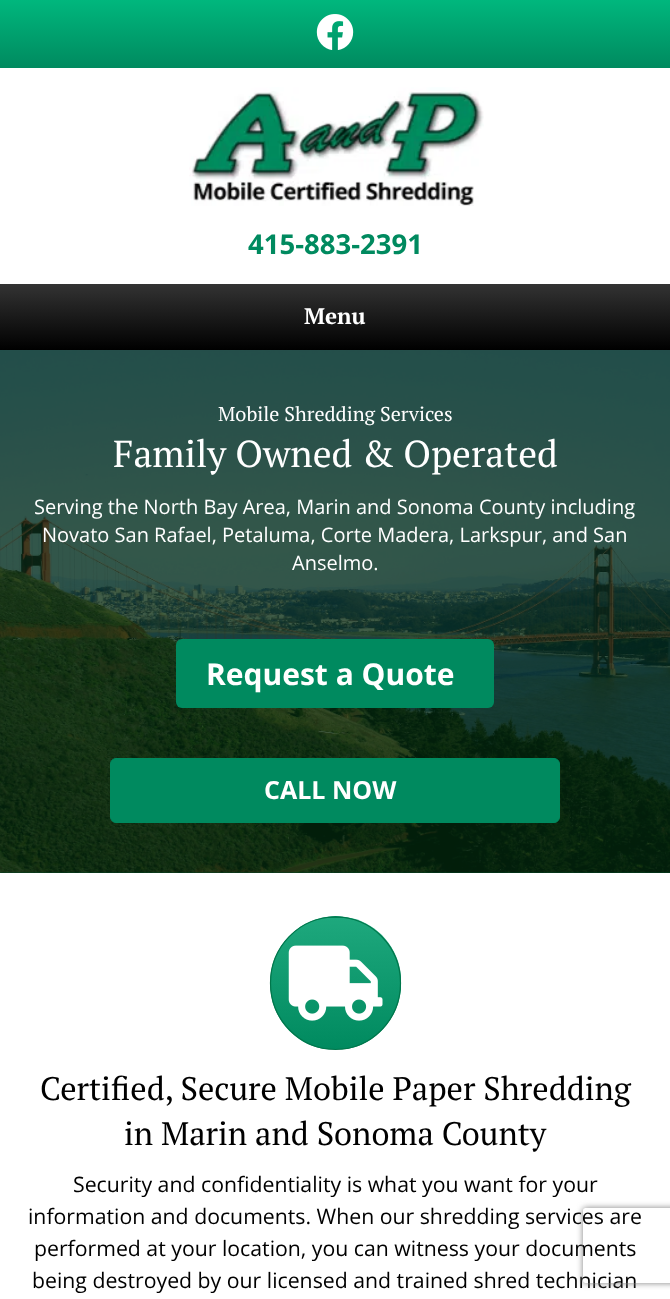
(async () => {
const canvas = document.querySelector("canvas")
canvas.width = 670
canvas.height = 1299
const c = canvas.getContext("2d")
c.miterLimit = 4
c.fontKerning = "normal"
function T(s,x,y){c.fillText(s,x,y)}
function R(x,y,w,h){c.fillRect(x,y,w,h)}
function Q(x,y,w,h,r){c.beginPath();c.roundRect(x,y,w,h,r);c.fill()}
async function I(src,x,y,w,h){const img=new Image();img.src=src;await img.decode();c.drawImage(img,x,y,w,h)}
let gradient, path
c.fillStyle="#fff"
R(0,0,670,1299)
gradient = c.createLinearGradient(335,68,335,0)
gradient.addColorStop(0,"#008a5f")
gradient.addColorStop(1,"#00b77d")
c.fillStyle = gradient
R(0,0,670,68)
await I("1.png",316,14,38,36)
await I("2.png",189,87,295,119)
c.font="bold 27.5px Open Sans"
c.fillStyle="#008a5f"
T("415-883-2391",248,254)
gradient = c.createLinearGradient(335,350,335,284)
gradient.addColorStop(0,"#000")
gradient.addColorStop(1,"#333")
c.fillStyle = gradient
R(0,284,670,66)
c.font="bold 22.5px PT Serif"
c.fillStyle="#fff"
T("Menu",304,324)
c.fillStyle="#024122"
R(0,872,670,1)
await I("3.png",0,350,670,523)
c.font="20px PT Serif"
c.fillStyle="#fff"
T("Mobile Shredding Services",218,421)
c.font="37.5px PT Serif"
T("Family Owned & Operated",113,467)
c.font="20px Open Sans"
T("Serving the North Bay Area, Marin and Sonoma County including",34,514)
T("Novato San Rafael, Petaluma, Corte Madera, Larkspur, and San",42,542)
T("Anselmo.",292,570)
c.fillStyle="#008a5f"
Q(176,639,318,69,6)
c.font="bold 30px Open Sans"
c.fillStyle="#fff"
T("Request a Quote",206,685)
c.fillStyle="#008a5f"
c.beginPath()
c.roundRect(110.5,758.5,449,64,5.5)
c.fill()
c.strokeStyle="#008a5f"
c.stroke()
c.font="bold 25px Open Sans"
c.fillStyle="#fff"
T("CALL NOW",264,799)
gradient = c.createLinearGradient(336,786,336,918)
gradient.addColorStop(0,"#1ea87d")
gradient.addColorStop(1,"#008a5f")
c.fillStyle = gradient
path = new Path2D("M335.5 916c5.5 0 10.5 1 15 2h-30c5-1 10-2 15-2z")
c.fill(path)
gradient = c.createLinearGradient(336,918,336,1049)
gradient.addColorStop(0,"#1ea87d")
gradient.addColorStop(1,"#008a5f")
c.fillStyle = gradient
path = new Path2D("M324 1049c-31-5-54-33-54-66c0-32 22-58 51-65h30c27 6 48 30 50 59v12c-3 30-25 55-54 60z")
c.fill(path)
path = new Path2D("M335.5 917c36 0 65 29.5 65 66c0 36.5-29 66.5-65 66.5c-36 0-65-30-65-66.5c0-36.5 29-66 65-66z")
c.strokeStyle="#00764b"
c.lineWidth=1.2
c.stroke(path)
await I("4.png",288,945,95,76)
c.font="32.5px PT Serif"
c.fillStyle="#000"
T("Certified, Secure Mobile Paper Shredding",40,1100)
T("in Marin and Sonoma County",124,1145)
c.font="21.25px Open Sans"
T("Security and confidentiality is what you want for your",73,1192)
T("information and documents. When our shredding services are",28,1224)
T("performed at your location, you can witness your documents",34,1256)
T("being destroyed by our licensed and trained shred technician",32,1288)
c.save()
path = new Path2D("M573 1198h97v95h-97zm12.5 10h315c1.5 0 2.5 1 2.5 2.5v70c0 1.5-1 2.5-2.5 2.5h-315c-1.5 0-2.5-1-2.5-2.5v-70c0-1.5 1-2.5 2.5-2.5z")
c.clip(path,"evenodd")
c.fillStyle="#808080"
c.filter="blur(3px)"
c.beginPath()
c.roundRect(583,1208,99,75,2.5)
c.fill()
c.filter="none"
c.restore()
})()
